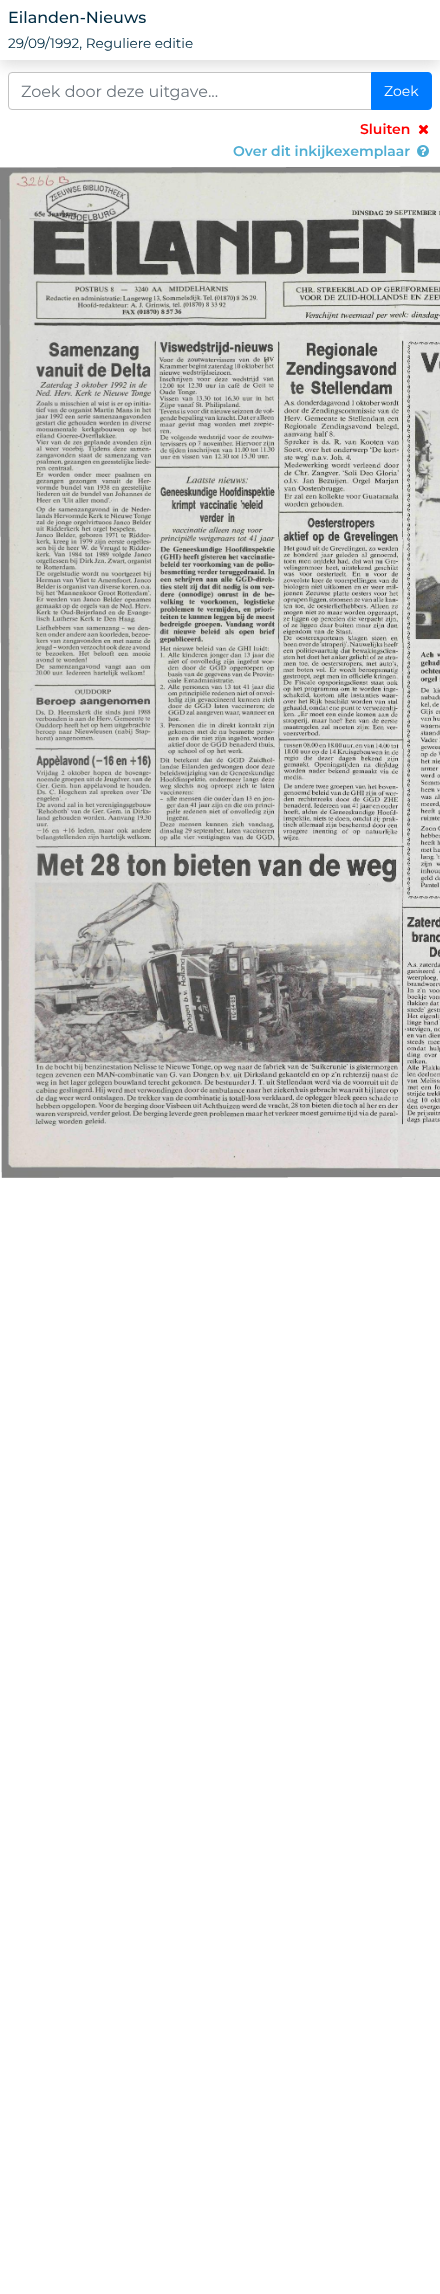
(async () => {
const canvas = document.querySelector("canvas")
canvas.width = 440
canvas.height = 2294
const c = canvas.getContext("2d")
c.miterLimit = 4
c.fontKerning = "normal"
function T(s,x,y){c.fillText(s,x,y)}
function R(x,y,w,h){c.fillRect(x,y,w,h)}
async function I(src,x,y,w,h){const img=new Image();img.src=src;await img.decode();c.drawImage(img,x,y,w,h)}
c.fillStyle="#fff"
R(0,0,440,2294)
c.save()
c.beginPath()
c.rect(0,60,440,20)
c.clip()
c.fillStyle="#dcdcdc"
c.filter="blur(7.5px)"
c.beginPath()
c.rect(0,5,440,60)
c.fill()
c.filter="none"
c.restore()
c.font="500 16px Montserrat"
c.fillStyle="#002c43"
T("Eilanden-Nieuws",8,23)
c.font="13.6px Montserrat"
T("29/09/1992, Reguliere editie",8,48)
c.fillStyle="#fff"
c.beginPath()
c.roundRect(8.5,72.5,363,37,[3.5,0,0,3.5])
c.fill()
c.strokeStyle="#c3c3c3"
c.stroke()
c.font="16px Montserrat"
c.fillStyle="#6c757d"
T("Zoek door deze uitgave...",21,97)
c.fillStyle="#007bff"
c.beginPath()
c.roundRect(371.5,72.5,60,37,[0,3.5,3.5,0])
c.fill()
c.strokeStyle="#007bff"
c.stroke()
c.font="14px Montserrat"
c.fillStyle="#fff"
T("Zoek",384,96)
c.font="600 14px Montserrat"
c.fillStyle="#f00"
T("Sluiten",360,134)
await I("1.png",418,124,11,11)
c.fillStyle="#4faed3"
T("Over dit inkijkexemplaar",233,156)
await I("2.png",417,145,12,12)
await I("3.png",0,166,440,1012)
})()
